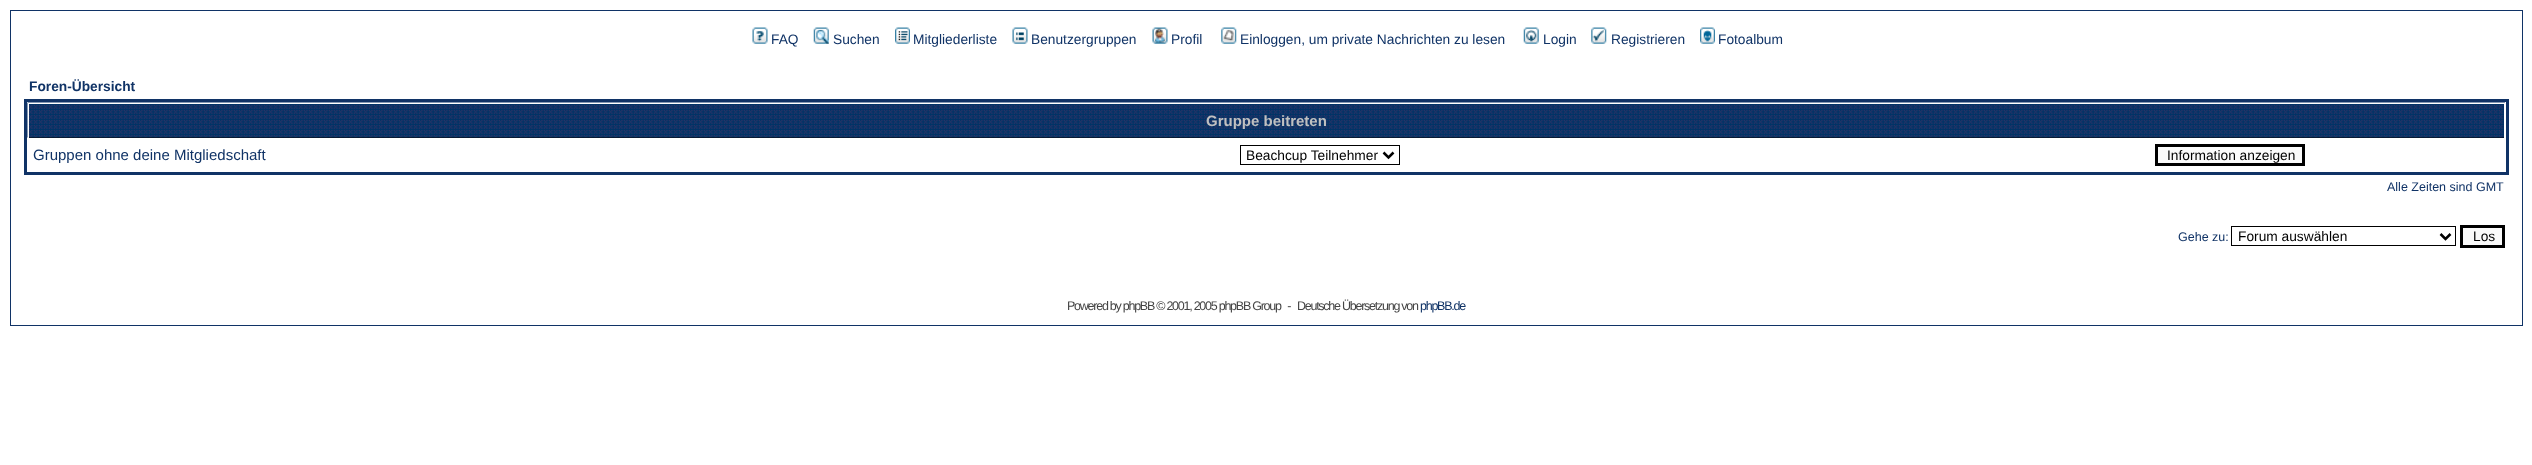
(async () => {
const canvas = document.querySelector("canvas")
canvas.width = 2532
canvas.height = 465
const c = canvas.getContext("2d")
c.miterLimit = 4
c.fontKerning = "normal"
function T(s,x,y){c.fillText(s,x,y)}
function R(x,y,w,h){c.fillRect(x,y,w,h)}
async function I(src,x,y,w,h){const img=new Image();img.src=src;await img.decode();c.drawImage(img,x,y,w,h)}
let path
c.fillStyle="#fff"
R(0,0,2532,465)
c.strokeStyle="#103366"
c.strokeRect(10.5,10.5,2512,315)
await I("1.png",752,27,16,17)
c.font="13.75px Liberation Sans"
c.fillStyle="#103366"
T("FAQ",771,44)
await I("2.png",813,27,16,17)
T("Suchen",833,44)
await I("3.png",895,27,15,17)
T("Mitgliederliste",913,44)
await I("4.png",1012,27,16,17)
T("Benutzergruppen",1031,44)
await I("5.png",1152,27,16,17)
T("Profil",1171,44)
await I("6.png",1221,27,16,17)
T("Einloggen, um private Nachrichten zu lesen",1240,44)
await I("7.png",1523,27,16,17)
T("Login",1543,44)
await I("8.png",1591,27,16,17)
T("Registrieren",1611,44)
await I("9.png",1700,27,15,17)
T("Fotoalbum",1718,44)
c.font="bold 13.75px Liberation Sans"
T("Foren-Übersicht",29,91)
c.lineWidth=3
c.strokeRect(25.5,100.5,2482,73)
c.fillStyle="#000"
R(29,137,2475,1)
await I("10.png",27,102,2478,36)
c.fillStyle="#fff"
R(28,103,2477,1)
R(2504,103,1,35)
R(28,103,1,35)
c.font="bold 15px Liberation Sans"
c.fillStyle="#c0c0c0"
T("Gruppe beitreten",1206,126)
c.font="15px Liberation Sans"
c.fillStyle="#103366"
T("Gruppen ohne deine Mitgliedschaft",33,160)
c.strokeStyle="#000"
c.lineWidth=1
c.strokeRect(1240.5,145.5,159,19)
path = new Path2D("M1383.5 152.5l5 5l5-5")
c.lineWidth=2.5
c.stroke(path)
c.font="13.75px Liberation Sans"
c.fillStyle="#000"
T("Beachcup Teilnehmer",1246,160)
c.fillStyle="#fafafa"
c.beginPath()
c.rect(2156.5,145.5,147,19)
c.fill()
c.lineWidth=3
c.stroke()
c.fillStyle="#000"
T("Information anzeigen",2167,160)
c.font="12.5px Liberation Sans"
c.fillStyle="#103366"
T("Alle Zeiten sind GMT",2387,191)
T("Gehe zu:",2178,241)
c.lineWidth=1
c.strokeRect(2231.5,226.5,224,19)
path = new Path2D("M2440.5 234l5 5l5-5")
c.lineWidth=2.5
c.stroke(path)
c.font="13.75px Liberation Sans"
c.fillStyle="#000"
T("Forum auswählen",2238,241)
c.fillStyle="#fafafa"
c.beginPath()
c.rect(2461.5,226.5,42,20)
c.fill()
c.lineWidth=3
c.stroke()
c.fillStyle="#000"
T("Los",2473,241)
c.letterSpacing="-1.25px"
c.font="12.5px Liberation Sans"
c.fillStyle="#444"
T("Powered by phpBB © 2001, 2005 phpBB Group   -   Deutsche Übersetzung von",1067,310)
c.fillStyle="#103366"
T("phpBB.de",1420,310)
})()
